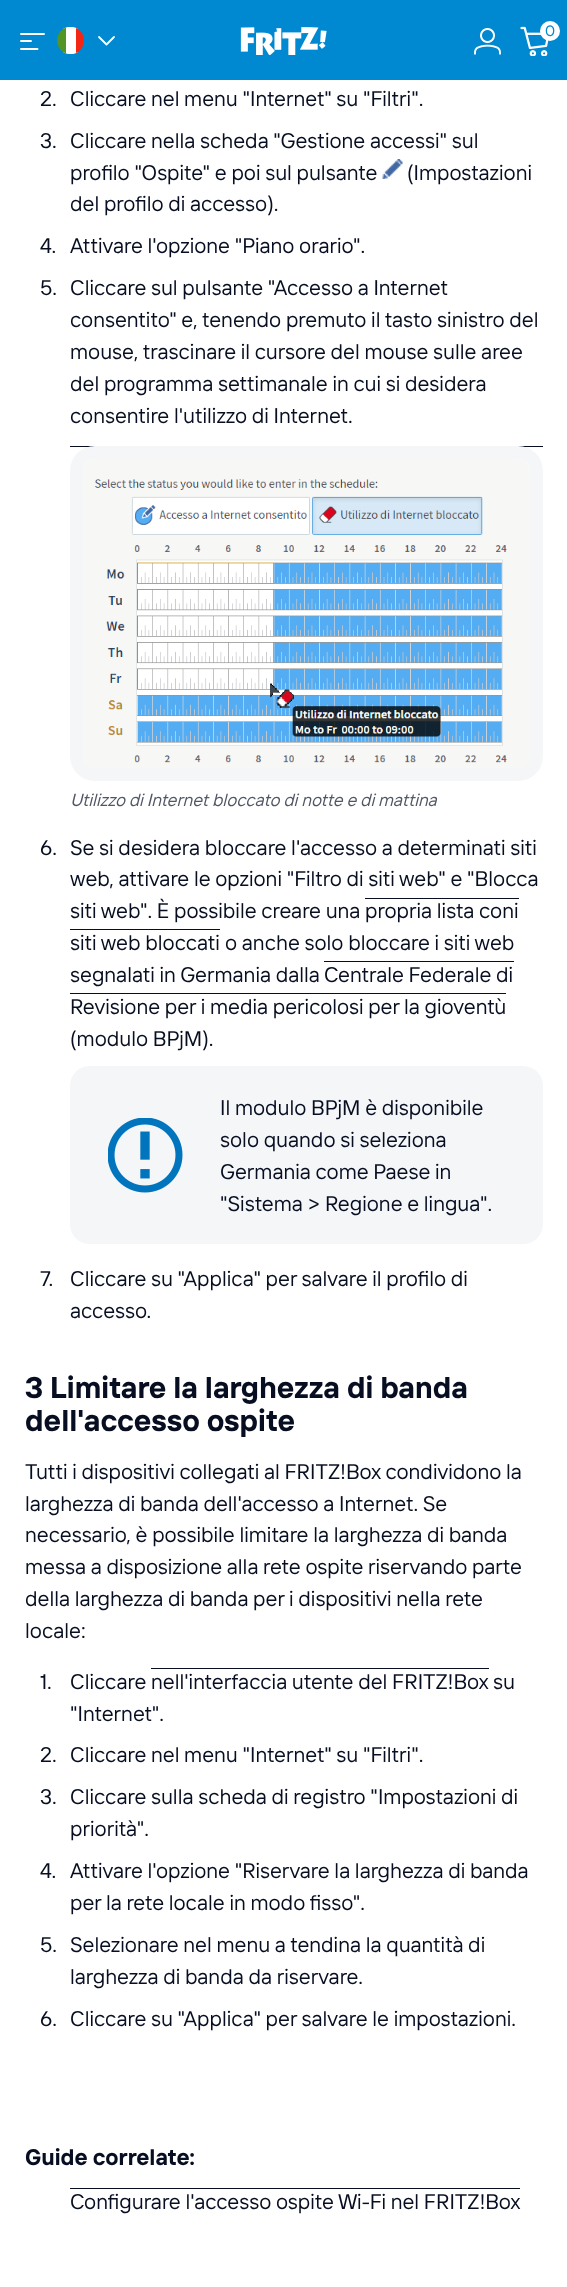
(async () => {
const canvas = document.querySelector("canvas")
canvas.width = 567
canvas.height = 2287
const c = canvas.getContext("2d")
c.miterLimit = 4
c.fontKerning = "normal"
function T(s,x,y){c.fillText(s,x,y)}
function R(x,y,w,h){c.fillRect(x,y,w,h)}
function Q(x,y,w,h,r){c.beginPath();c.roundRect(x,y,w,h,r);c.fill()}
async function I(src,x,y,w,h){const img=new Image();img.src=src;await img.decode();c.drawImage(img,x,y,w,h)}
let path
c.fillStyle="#fff"
R(0,0,567,2287)
c.fillStyle="#0089d1"
R(0,0,567,80)
path = new Path2D("M21 34h23m-23 7h10m-10 8h16.5")
c.strokeStyle="#fff"
c.lineWidth=1.9
c.lineCap="round"
c.stroke(path)
c.save()
c.beginPath()
c.rect(57,27,27,27)
c.clip()
c.fillStyle="#fff"
path = new Path2D("M63 52v-23c4.5-3 10.5-3 15 0v23c-4.5 3-10.5 3-15 0z")
c.fill(path)
c.restore()
c.fillStyle="#f32614"
path = new Path2D("M76 53v-25c10.5 4.5 10.5 20 0 25z")
c.fill(path)
c.fillStyle="#529426"
path = new Path2D("M57 40.5c0-5.5 3.5-11 9-13v26c-5.5-2-9-7.5-9-13z")
c.fill(path)
path = new Path2D("M99 37l7.5 7.5l7.5-7.5")
c.lineWidth=1.8
c.lineJoin="round"
c.stroke(path)
await I("1.png",240,27,87,28)
await I("2.png",474,28,27,27)
await I("3.png",520,26,29,30)
c.fillStyle="#fff"
c.beginPath()
c.arc(550,31,10,0,7)
c.fill()
c.font="15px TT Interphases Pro"
c.fillStyle="#0089d1"
T("0",545,36)
c.font="21.25px TT Interphases Pro"
c.fillStyle="#070e21"
T("2.",40,106)
T("Cliccare nel menu \"Internet\" su \"Filtri\".",70,106)
T("3.",40,148)
T("Cliccare nella scheda \"Gestione accessi\" sul",70,148)
T("profilo \"Ospite\" e poi sul pulsante",70,180)
await I("4.png",382,159,21,20)
T("(Impostazioni",407,180)
T("del profilo di accesso).",70,211)
T("4.",40,253)
T("Attivare l'opzione \"Piano orario\".",70,253)
T("5.",40,295)
T("Cliccare sul pulsante \"Accesso a Internet",70,295)
T("consentito\" e, tenendo premuto il tasto sinistro del",70,327)
T("mouse, trascinare il cursore del mouse sulle aree",70,359)
T("del programma settimanale in cui si desidera",70,391)
T("consentire l'utilizzo di Internet.",70,423)
R(70,446,473,1)
c.beginPath()
c.roundRect(76.5,452.5,460,322,18.5)
c.strokeStyle="#f4f6f8"
c.lineWidth=13
c.lineJoin="miter"
c.stroke()
await I("5.png",83,459,447,309)
c.font="italic 17.5px TT Interphases Pro"
c.fillStyle="#515664"
T("Utilizzo di Internet bloccato di notte e di mattina",70,806)
c.font="21.25px TT Interphases Pro"
c.fillStyle="#070e21"
T("6.",40,855)
T("Se si desidera bloccare l'accesso a determinati siti",70,855)
T("web, attivare le opzioni \"Filtro di siti web\" e \"Blocca",70,886)
T("siti web\". È possibile creare una propria lista coni",70,918)
T("siti web bloccati",70,950)
R(365,898,154,1)
R(70,929,150,1)
T("o anche solo bloccare i siti web",225,950)
T("segnalati in Germania dalla",70,982)
T("Centrale Federale di",324,982)
R(324,961,190,1)
T("Revisione per i media pericolosi per la gioventù",70,1014)
R(70,993,436,1)
T("(modulo BPjM).",70,1046)
c.fillStyle="#f4f6f8"
Q(70,1066,473,178,20)
c.fillStyle="#070e21"
T("Il modulo BPjM è disponibile",220,1115)
await I("6.png",108,1118,75,75)
T("solo quando si seleziona",220,1147)
T("Germania come Paese in",220,1179)
T("\"Sistema > Regione e lingua\".",220,1211)
T("7.",40,1286)
T("Cliccare su \"Applica\" per salvare il profilo di",70,1286)
T("accesso.",70,1318)
c.font="bold 30px TT Interphases Pro"
T("3 Limitare la larghezza di banda",25,1398)
T("dell'accesso ospite",25,1431)
c.font="21.25px TT Interphases Pro"
T("Tutti i dispositivi collegati al FRITZ!Box condividono la",25,1479)
T("larghezza di banda dell'accesso a Internet. Se",25,1511)
T("necessario, è possibile limitare la larghezza di banda",25,1542)
T("messa a disposizione alla rete ospite riservando parte",25,1574)
T("della larghezza di banda per i dispositivi nella rete",25,1606)
T("locale:",25,1638)
R(151,1668,338,1)
T("1.",40,1689)
T("Cliccare nell'interfaccia utente del FRITZ!Box",70,1689)
T("su",493,1689)
T("\"Internet\".",70,1721)
T("2.",40,1762)
T("Cliccare nel menu \"Internet\" su \"Filtri\".",70,1762)
T("3.",40,1804)
T("Cliccare sulla scheda di registro \"Impostazioni di",70,1804)
T("priorità\".",70,1836)
T("4.",40,1878)
T("Attivare l'opzione \"Riservare la larghezza di banda",70,1878)
T("per la rete locale in modo fisso\".",70,1910)
T("5.",40,1952)
T("Selezionare nel menu a tendina la quantità di",70,1952)
T("larghezza di banda da riservare.",70,1984)
T("6.",40,2026)
T("Cliccare su \"Applica\" per salvare le impostazioni.",70,2026)
c.font="bold 22.5px TT Interphases Pro"
T("Guide correlate:",25,2165)
c.font="21.25px TT Interphases Pro"
T("Configurare l'accesso ospite Wi-Fi nel FRITZ!Box",70,2209)
R(70,2188,450,1)
})()
